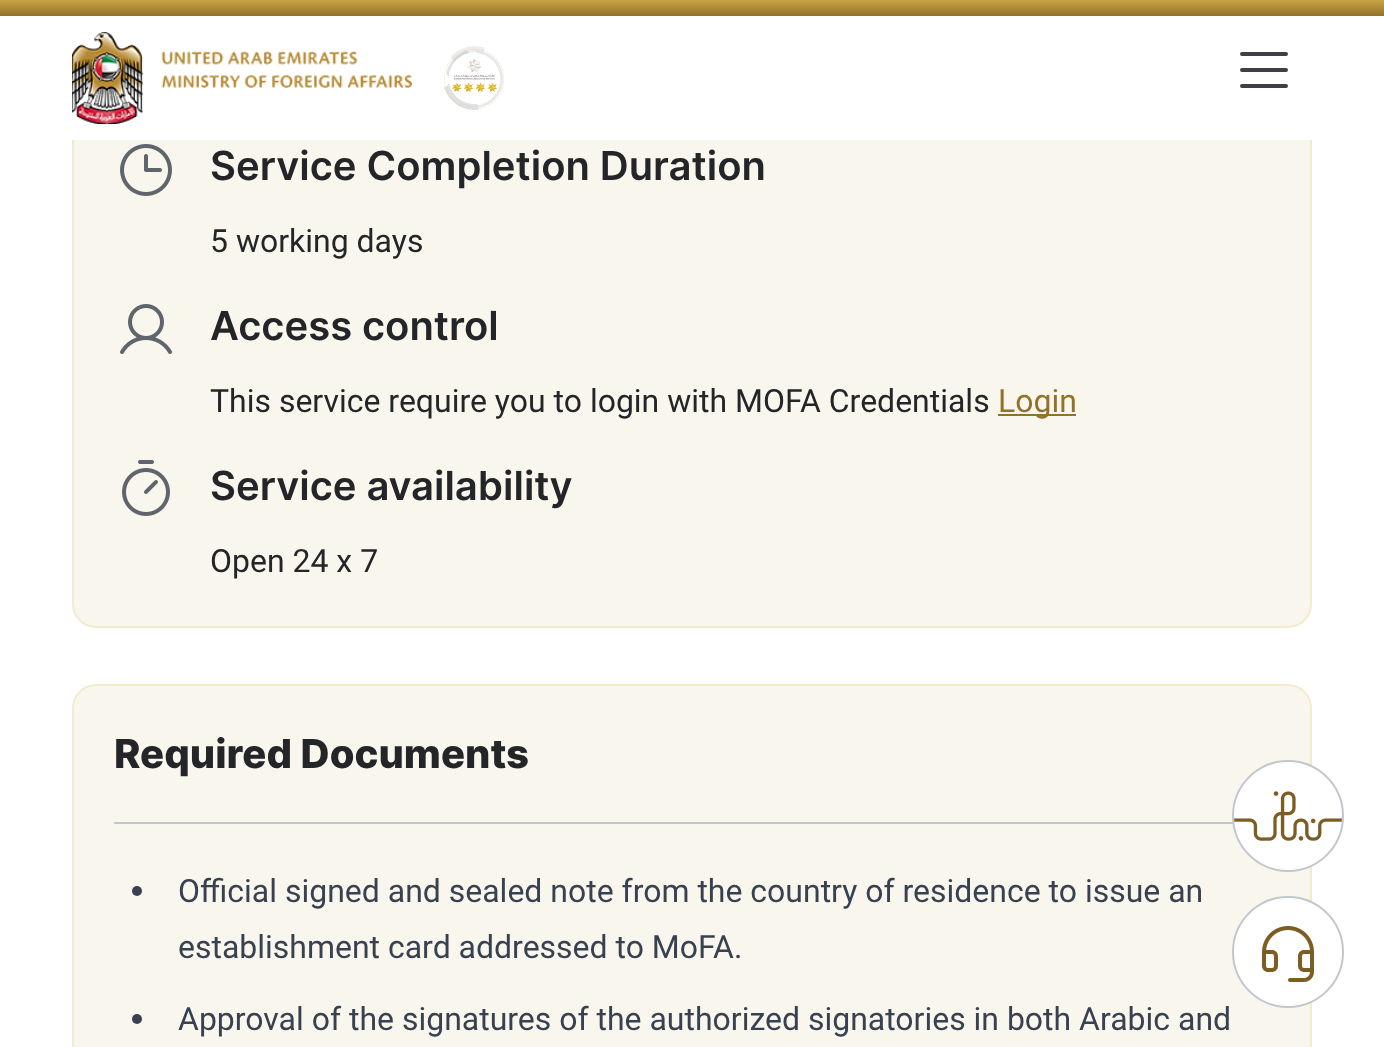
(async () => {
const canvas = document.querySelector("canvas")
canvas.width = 1384
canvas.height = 1047
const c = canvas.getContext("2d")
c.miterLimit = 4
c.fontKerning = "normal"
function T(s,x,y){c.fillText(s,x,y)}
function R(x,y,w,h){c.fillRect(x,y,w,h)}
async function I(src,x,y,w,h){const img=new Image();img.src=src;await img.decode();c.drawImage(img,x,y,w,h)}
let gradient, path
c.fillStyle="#fff"
R(0,0,1384,1047)
c.fillStyle="#f9f7ed"
c.beginPath()
c.roundRect(73,97,1238,530,23)
c.fill()
c.strokeStyle="#f2eccf"
c.lineWidth=2
c.stroke()
c.fillStyle="#fff"
R(72,96,1240,44)
gradient = c.createLinearGradient(692,0,692,16)
gradient.addColorStop(0,"#cba344")
gradient.addColorStop(1,"#92722a")
c.fillStyle = gradient
R(0,0,1384,16)
await I("1.png",72,32,340,92)
await I("2.png",444,46,60,64)
path = new Path2D("M1242 70h44m-44-16h44m-44 32h44")
c.strokeStyle="#3e4046"
c.lineWidth=4
c.lineCap="round"
c.lineJoin="round"
c.stroke(path)
await I("3.png",120,144,52,52)
c.font="600 40px Inter"
c.fillStyle="#232528"
T("Service Completion Duration",210,180)
c.font="32px Roboto"
T("5 working days",210,252)
await I("4.png",120,304,52,50)
c.font="600 40px Inter"
T("Access control",210,340)
c.font="32px Roboto"
T("This service require you to login with MOFA Credentials",210,412)
c.fillStyle="#92722a"
R(998,414,78,2)
T("Login",998,412)
await I("5.png",122,460,48,56)
c.font="600 40px Inter"
c.fillStyle="#232528"
T("Service availability",210,500)
c.font="32px Roboto"
T("Open 24 x 7",210,572)
c.fillStyle="#f9f7ed"
c.beginPath()
c.roundRect(73,685,1238,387,23)
c.fill()
c.strokeStyle="#f2eccf"
c.lineWidth=2
c.lineJoin="miter"
c.stroke()
c.fillStyle="#c3c6cb"
R(114,822,1119,2)
c.font="800 40px Inter"
c.fillStyle="#232528"
T("Required Documents",114,768)
c.fillStyle="#374151"
c.beginPath()
c.arc(137,891,5,0,7)
c.fill()
c.font="32px Roboto"
T("Official signed and sealed note from the country of residence to issue an",178,902)
T("establishment card addressed to MoFA.",178,958)
c.beginPath()
c.arc(137,1019,5,0,7)
c.fill()
T("Approval of the signatures of the authorized signatories in both Arabic and",178,1030)
c.fillStyle="#fff"
c.beginPath()
c.arc(1288,816,55,0,7)
c.fill()
c.strokeStyle="#c3c6cb"
c.stroke()
await I("6.png",1234,791,108,50)
c.beginPath()
c.arc(1288,952,55,0,7)
c.fill()
c.stroke()
await I("7.png",1262,926,52,56)
})()
